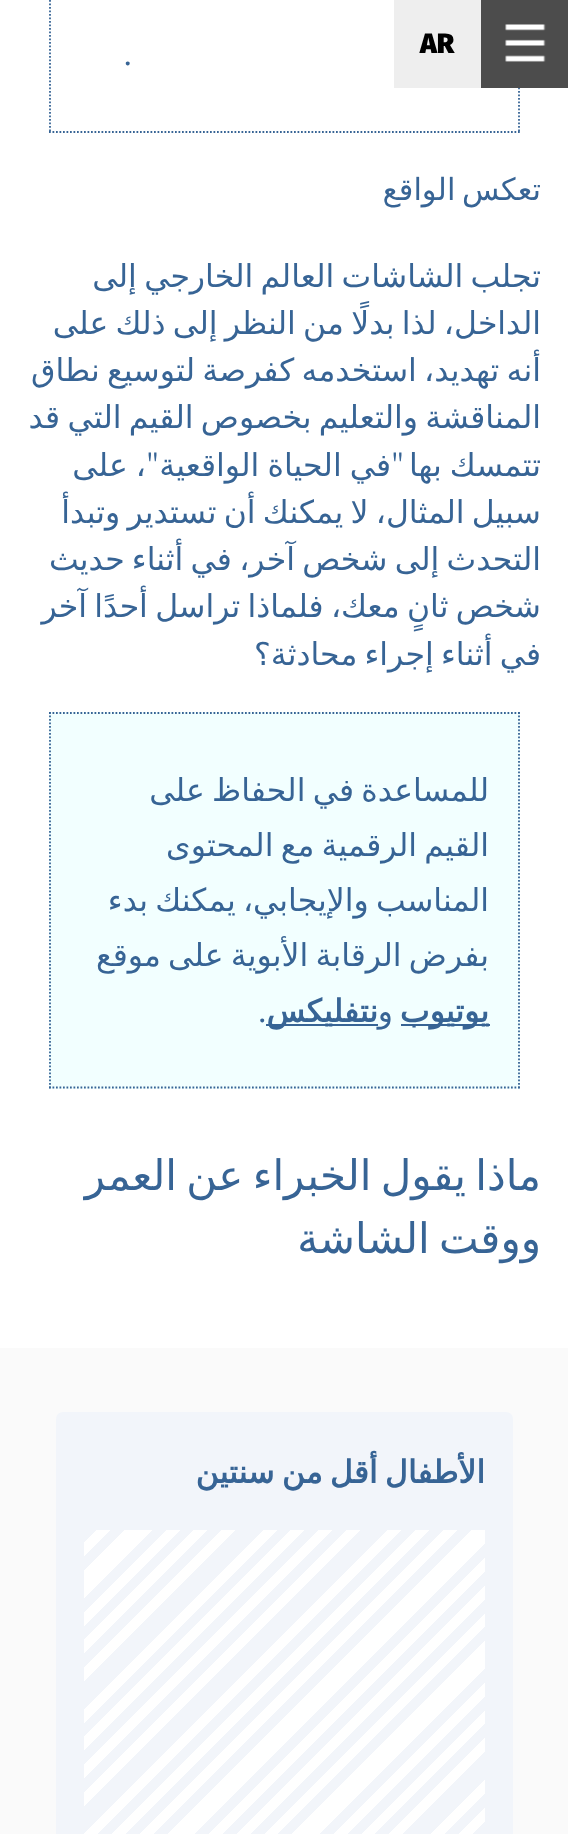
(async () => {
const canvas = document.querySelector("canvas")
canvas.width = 568
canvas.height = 1834
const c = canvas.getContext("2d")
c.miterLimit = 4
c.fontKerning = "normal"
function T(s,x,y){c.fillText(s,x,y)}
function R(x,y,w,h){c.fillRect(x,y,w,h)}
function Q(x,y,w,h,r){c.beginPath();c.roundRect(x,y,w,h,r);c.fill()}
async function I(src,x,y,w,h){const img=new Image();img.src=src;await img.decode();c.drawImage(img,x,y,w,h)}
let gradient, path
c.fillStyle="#fff"
R(0,0,568,1834)
path = new Path2D("M519-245v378")
c.strokeStyle="#376495"
c.lineWidth=1.8
c.setLineDash([1.75,1.75])
c.stroke(path)
c.fillStyle="#4c4c4c"
R(481,0,87,88)
await I("1.png",505,24,41,38)
c.fillStyle="#eee"
R(394,0,87,88)
c.font="900 28px Fira Sans"
c.fillStyle="#000"
T("AR",420,53)
path = new Path2D("M49 132h471")
c.stroke(path)
path = new Path2D("M50-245v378")
c.stroke(path)
c.direction="rtl"
c.font="31.5px IBM Plex Serif"
c.fillStyle="#376495"
T(".",132,65)
c.wordSpacing="-3px"
c.font="30.5px DejaVu Sans"
T("تعكس الواقع",541,200)
c.wordSpacing="-2.75px"
c.font="31.5px DejaVu Sans"
T("تجلب الشاشات العالم الخارجي إلى",541,287)
T("الداخل، لذا بدلًا من النظر إلى ذلك على",541,334)
T("أنه تهديد، استخدمه كفرصة لتوسيع نطاق",541,381)
T("المناقشة والتعليم بخصوص القيم التي قد",541,428)
c.wordSpacing="-2px"
T("تتمسك بها",541,476)
c.wordSpacing="0px"
c.font="31.5px IBM Plex Serif"
T("\"",404,476)
c.wordSpacing="-2px"
c.font="31.5px DejaVu Sans"
T("في الحياة الواقعية",391,476)
c.wordSpacing="0px"
c.font="31.5px IBM Plex Serif"
T("\"",159,476)
c.wordSpacing="-2px"
c.font="31.5px DejaVu Sans"
T("، على",146,476)
c.wordSpacing="-2.75px"
T("سبيل المثال، لا يمكنك أن تستدير وتبدأ",541,523)
T("التحدث إلى شخص آخر، في أثناء حديث",541,570)
T("شخص ثانٍ معك، فلماذا تراسل أحدًا آخر",541,617)
T("في أثناء إجراء محادثة؟",541,665)
c.fillStyle="#f2ffff"
R(49,712,471,377)
path = new Path2D("M49 713h471")
c.stroke(path)
path = new Path2D("M519 712v376.5")
c.stroke(path)
path = new Path2D("M49 1087.5h471")
c.stroke(path)
path = new Path2D("M50 712v376.5")
c.stroke(path)
c.fillStyle="#376495"
T("للمساعدة في الحفاظ على",489,801)
T("القيم الرقمية مع المحتوى",489,856)
T("المناسب والإيجابي، يمكنك بدء",489,911)
T("بفرض الرقابة الأبوية على موقع",489,966)
R(401,1024,89,2)
c.wordSpacing="0px"
c.font="bold 31.5px DejaVu Sans"
T("يوتيوب",489,1022)
c.font="31.5px DejaVu Sans"
T("و",393,1022)
R(266,1024,112,2)
c.font="bold 31.5px DejaVu Sans"
T("نتفليكس",378,1022)
c.direction="ltr"
c.font="31.5px IBM Plex Serif"
T(".",258,1022)
c.wordSpacing="-4px"
c.direction="rtl"
c.font="42px DejaVu Sans"
T("ماذا يقول الخبراء عن العمر",541,1190)
T("ووقت الشاشة",541,1253)
c.fillStyle="#fafafa"
R(0,1348,568,486)
c.fillStyle="#f2f5fa"
Q(56,1412,457,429,7)
c.wordSpacing="-2.75px"
c.font="bold 31.5px DejaVu Sans"
c.fillStyle="#376495"
T("الأطفال أقل من سنتين",485,1483)
gradient = c.createLinearGradient(-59,1672,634,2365)
gradient.addColorStop(0,"#f2f5fa")
gradient.addColorStop(.01,"#f2f5fa")
gradient.addColorStop(.01,"#fff")
gradient.addColorStop(.02,"#fff")
gradient.addColorStop(.02,"#f2f5fa")
gradient.addColorStop(.03,"#f2f5fa")
gradient.addColorStop(.03,"#fff")
gradient.addColorStop(.04,"#fff")
gradient.addColorStop(.04,"#f2f5fa")
gradient.addColorStop(.04,"#f2f5fa")
gradient.addColorStop(.04,"#fff")
gradient.addColorStop(.05,"#fff")
gradient.addColorStop(.05,"#f2f5fa")
gradient.addColorStop(.06,"#f2f5fa")
gradient.addColorStop(.06,"#fff")
gradient.addColorStop(.07,"#fff")
gradient.addColorStop(.07,"#f2f5fa")
gradient.addColorStop(.08,"#f2f5fa")
gradient.addColorStop(.08,"#fff")
gradient.addColorStop(.09,"#fff")
gradient.addColorStop(.09,"#f2f5fa")
gradient.addColorStop(.1,"#f2f5fa")
gradient.addColorStop(.1,"#fff")
gradient.addColorStop(.11,"#fff")
gradient.addColorStop(.11,"#f2f5fa")
gradient.addColorStop(.12,"#f2f5fa")
gradient.addColorStop(.12,"#fff")
gradient.addColorStop(.12,"#fff")
gradient.addColorStop(.12,"#f2f5fa")
gradient.addColorStop(.13,"#f2f5fa")
gradient.addColorStop(.13,"#fff")
gradient.addColorStop(.14,"#fff")
gradient.addColorStop(.14,"#f2f5fa")
gradient.addColorStop(.15,"#f2f5fa")
gradient.addColorStop(.15,"#fff")
gradient.addColorStop(.16,"#fff")
gradient.addColorStop(.16,"#f2f5fa")
gradient.addColorStop(.17,"#f2f5fa")
gradient.addColorStop(.17,"#fff")
gradient.addColorStop(.18,"#fff")
gradient.addColorStop(.18,"#f2f5fa")
gradient.addColorStop(.19,"#f2f5fa")
gradient.addColorStop(.19,"#fff")
gradient.addColorStop(.2,"#fff")
gradient.addColorStop(.2,"#f2f5fa")
gradient.addColorStop(.21,"#f2f5fa")
gradient.addColorStop(.21,"#fff")
gradient.addColorStop(.21,"#fff")
gradient.addColorStop(.21,"#f2f5fa")
gradient.addColorStop(.22,"#f2f5fa")
gradient.addColorStop(.22,"#fff")
gradient.addColorStop(.23,"#fff")
gradient.addColorStop(.23,"#f2f5fa")
gradient.addColorStop(.24,"#f2f5fa")
gradient.addColorStop(.24,"#fff")
gradient.addColorStop(.25,"#fff")
gradient.addColorStop(.25,"#f2f5fa")
gradient.addColorStop(.26,"#f2f5fa")
gradient.addColorStop(.26,"#fff")
gradient.addColorStop(.27,"#fff")
gradient.addColorStop(.27,"#f2f5fa")
gradient.addColorStop(.28,"#f2f5fa")
gradient.addColorStop(.28,"#fff")
gradient.addColorStop(.29,"#fff")
gradient.addColorStop(.29,"#f2f5fa")
gradient.addColorStop(.29,"#f2f5fa")
gradient.addColorStop(.29,"#fff")
gradient.addColorStop(.3,"#fff")
gradient.addColorStop(.3,"#f2f5fa")
gradient.addColorStop(.31,"#f2f5fa")
gradient.addColorStop(.31,"#fff")
gradient.addColorStop(.32,"#fff")
gradient.addColorStop(.32,"#f2f5fa")
gradient.addColorStop(.33,"#f2f5fa")
gradient.addColorStop(.33,"#fff")
gradient.addColorStop(.34,"#fff")
gradient.addColorStop(.34,"#f2f5fa")
gradient.addColorStop(.35,"#f2f5fa")
gradient.addColorStop(.35,"#fff")
gradient.addColorStop(.36,"#fff")
gradient.addColorStop(.36,"#f2f5fa")
gradient.addColorStop(.37,"#f2f5fa")
gradient.addColorStop(.37,"#fff")
gradient.addColorStop(.38,"#fff")
gradient.addColorStop(.38,"#f2f5fa")
gradient.addColorStop(.38,"#f2f5fa")
gradient.addColorStop(.38,"#fff")
gradient.addColorStop(.39,"#fff")
gradient.addColorStop(.39,"#f2f5fa")
gradient.addColorStop(.4,"#f2f5fa")
gradient.addColorStop(.4,"#fff")
gradient.addColorStop(.41,"#fff")
gradient.addColorStop(.41,"#f2f5fa")
gradient.addColorStop(.42,"#f2f5fa")
gradient.addColorStop(.42,"#fff")
gradient.addColorStop(.43,"#fff")
gradient.addColorStop(.43,"#f2f5fa")
gradient.addColorStop(.44,"#f2f5fa")
gradient.addColorStop(.44,"#fff")
gradient.addColorStop(.45,"#fff")
gradient.addColorStop(.45,"#f2f5fa")
gradient.addColorStop(.46,"#f2f5fa")
gradient.addColorStop(.46,"#fff")
gradient.addColorStop(.46,"#fff")
gradient.addColorStop(.46,"#f2f5fa")
gradient.addColorStop(.47,"#f2f5fa")
gradient.addColorStop(.47,"#fff")
gradient.addColorStop(.48,"#fff")
gradient.addColorStop(.48,"#f2f5fa")
gradient.addColorStop(.49,"#f2f5fa")
gradient.addColorStop(.49,"#fff")
gradient.addColorStop(.5,"#fff")
gradient.addColorStop(.5,"#f2f5fa")
gradient.addColorStop(.51,"#f2f5fa")
gradient.addColorStop(.51,"#fff")
gradient.addColorStop(.52,"#fff")
gradient.addColorStop(.52,"#f2f5fa")
gradient.addColorStop(.53,"#f2f5fa")
gradient.addColorStop(.53,"#fff")
gradient.addColorStop(.54,"#fff")
gradient.addColorStop(.54,"#f2f5fa")
gradient.addColorStop(.54,"#f2f5fa")
gradient.addColorStop(.54,"#fff")
gradient.addColorStop(.55,"#fff")
gradient.addColorStop(.55,"#f2f5fa")
gradient.addColorStop(.56,"#f2f5fa")
gradient.addColorStop(.56,"#fff")
gradient.addColorStop(.57,"#fff")
gradient.addColorStop(.57,"#f2f5fa")
gradient.addColorStop(.58,"#f2f5fa")
gradient.addColorStop(.58,"#fff")
gradient.addColorStop(.59,"#fff")
gradient.addColorStop(.59,"#f2f5fa")
gradient.addColorStop(.6,"#f2f5fa")
gradient.addColorStop(.6,"#fff")
gradient.addColorStop(.61,"#fff")
gradient.addColorStop(.61,"#f2f5fa")
gradient.addColorStop(.62,"#f2f5fa")
gradient.addColorStop(.62,"#fff")
gradient.addColorStop(.62,"#fff")
gradient.addColorStop(.62,"#f2f5fa")
gradient.addColorStop(.63,"#f2f5fa")
gradient.addColorStop(.63,"#fff")
gradient.addColorStop(.64,"#fff")
gradient.addColorStop(.64,"#f2f5fa")
gradient.addColorStop(.65,"#f2f5fa")
gradient.addColorStop(.65,"#fff")
gradient.addColorStop(.66,"#fff")
gradient.addColorStop(.66,"#f2f5fa")
gradient.addColorStop(.67,"#f2f5fa")
gradient.addColorStop(.67,"#fff")
gradient.addColorStop(.68,"#fff")
gradient.addColorStop(.68,"#f2f5fa")
gradient.addColorStop(.69,"#f2f5fa")
gradient.addColorStop(.69,"#fff")
gradient.addColorStop(.7,"#fff")
gradient.addColorStop(.7,"#f2f5fa")
gradient.addColorStop(.71,"#f2f5fa")
gradient.addColorStop(.71,"#fff")
gradient.addColorStop(.71,"#fff")
gradient.addColorStop(.71,"#f2f5fa")
gradient.addColorStop(.72,"#f2f5fa")
gradient.addColorStop(.72,"#fff")
gradient.addColorStop(.73,"#fff")
gradient.addColorStop(.73,"#f2f5fa")
gradient.addColorStop(.74,"#f2f5fa")
gradient.addColorStop(.74,"#fff")
gradient.addColorStop(.75,"#fff")
gradient.addColorStop(.75,"#f2f5fa")
gradient.addColorStop(.76,"#f2f5fa")
gradient.addColorStop(.76,"#fff")
gradient.addColorStop(.77,"#fff")
gradient.addColorStop(.77,"#f2f5fa")
gradient.addColorStop(.78,"#f2f5fa")
gradient.addColorStop(.78,"#fff")
gradient.addColorStop(.79,"#fff")
gradient.addColorStop(.79,"#f2f5fa")
gradient.addColorStop(.79,"#f2f5fa")
gradient.addColorStop(.79,"#fff")
gradient.addColorStop(.8,"#fff")
gradient.addColorStop(.8,"#f2f5fa")
gradient.addColorStop(.81,"#f2f5fa")
gradient.addColorStop(.81,"#fff")
gradient.addColorStop(.82,"#fff")
gradient.addColorStop(.82,"#f2f5fa")
gradient.addColorStop(.83,"#f2f5fa")
gradient.addColorStop(.83,"#fff")
gradient.addColorStop(.84,"#fff")
gradient.addColorStop(.84,"#f2f5fa")
gradient.addColorStop(.85,"#f2f5fa")
gradient.addColorStop(.85,"#fff")
gradient.addColorStop(.86,"#fff")
gradient.addColorStop(.86,"#f2f5fa")
gradient.addColorStop(.87,"#f2f5fa")
gradient.addColorStop(.87,"#fff")
gradient.addColorStop(.88,"#fff")
gradient.addColorStop(.88,"#f2f5fa")
gradient.addColorStop(.88,"#f2f5fa")
gradient.addColorStop(.88,"#fff")
gradient.addColorStop(.89,"#fff")
gradient.addColorStop(.89,"#f2f5fa")
gradient.addColorStop(.9,"#f2f5fa")
gradient.addColorStop(.9,"#fff")
gradient.addColorStop(.91,"#fff")
gradient.addColorStop(.91,"#f2f5fa")
gradient.addColorStop(.92,"#f2f5fa")
gradient.addColorStop(.92,"#fff")
gradient.addColorStop(.93,"#fff")
gradient.addColorStop(.93,"#f2f5fa")
gradient.addColorStop(.94,"#f2f5fa")
gradient.addColorStop(.94,"#fff")
gradient.addColorStop(.95,"#fff")
gradient.addColorStop(.95,"#f2f5fa")
gradient.addColorStop(.96,"#f2f5fa")
gradient.addColorStop(.96,"#fff")
gradient.addColorStop(.96,"#fff")
gradient.addColorStop(.96,"#f2f5fa")
gradient.addColorStop(.97,"#f2f5fa")
gradient.addColorStop(.97,"#fff")
gradient.addColorStop(.98,"#fff")
gradient.addColorStop(.98,"#f2f5fa")
gradient.addColorStop(.99,"#f2f5fa")
gradient.addColorStop(.99,"#fff")
gradient.addColorStop(1,"#fff")
c.fillStyle = gradient
R(84,1530,401,304)
})()
